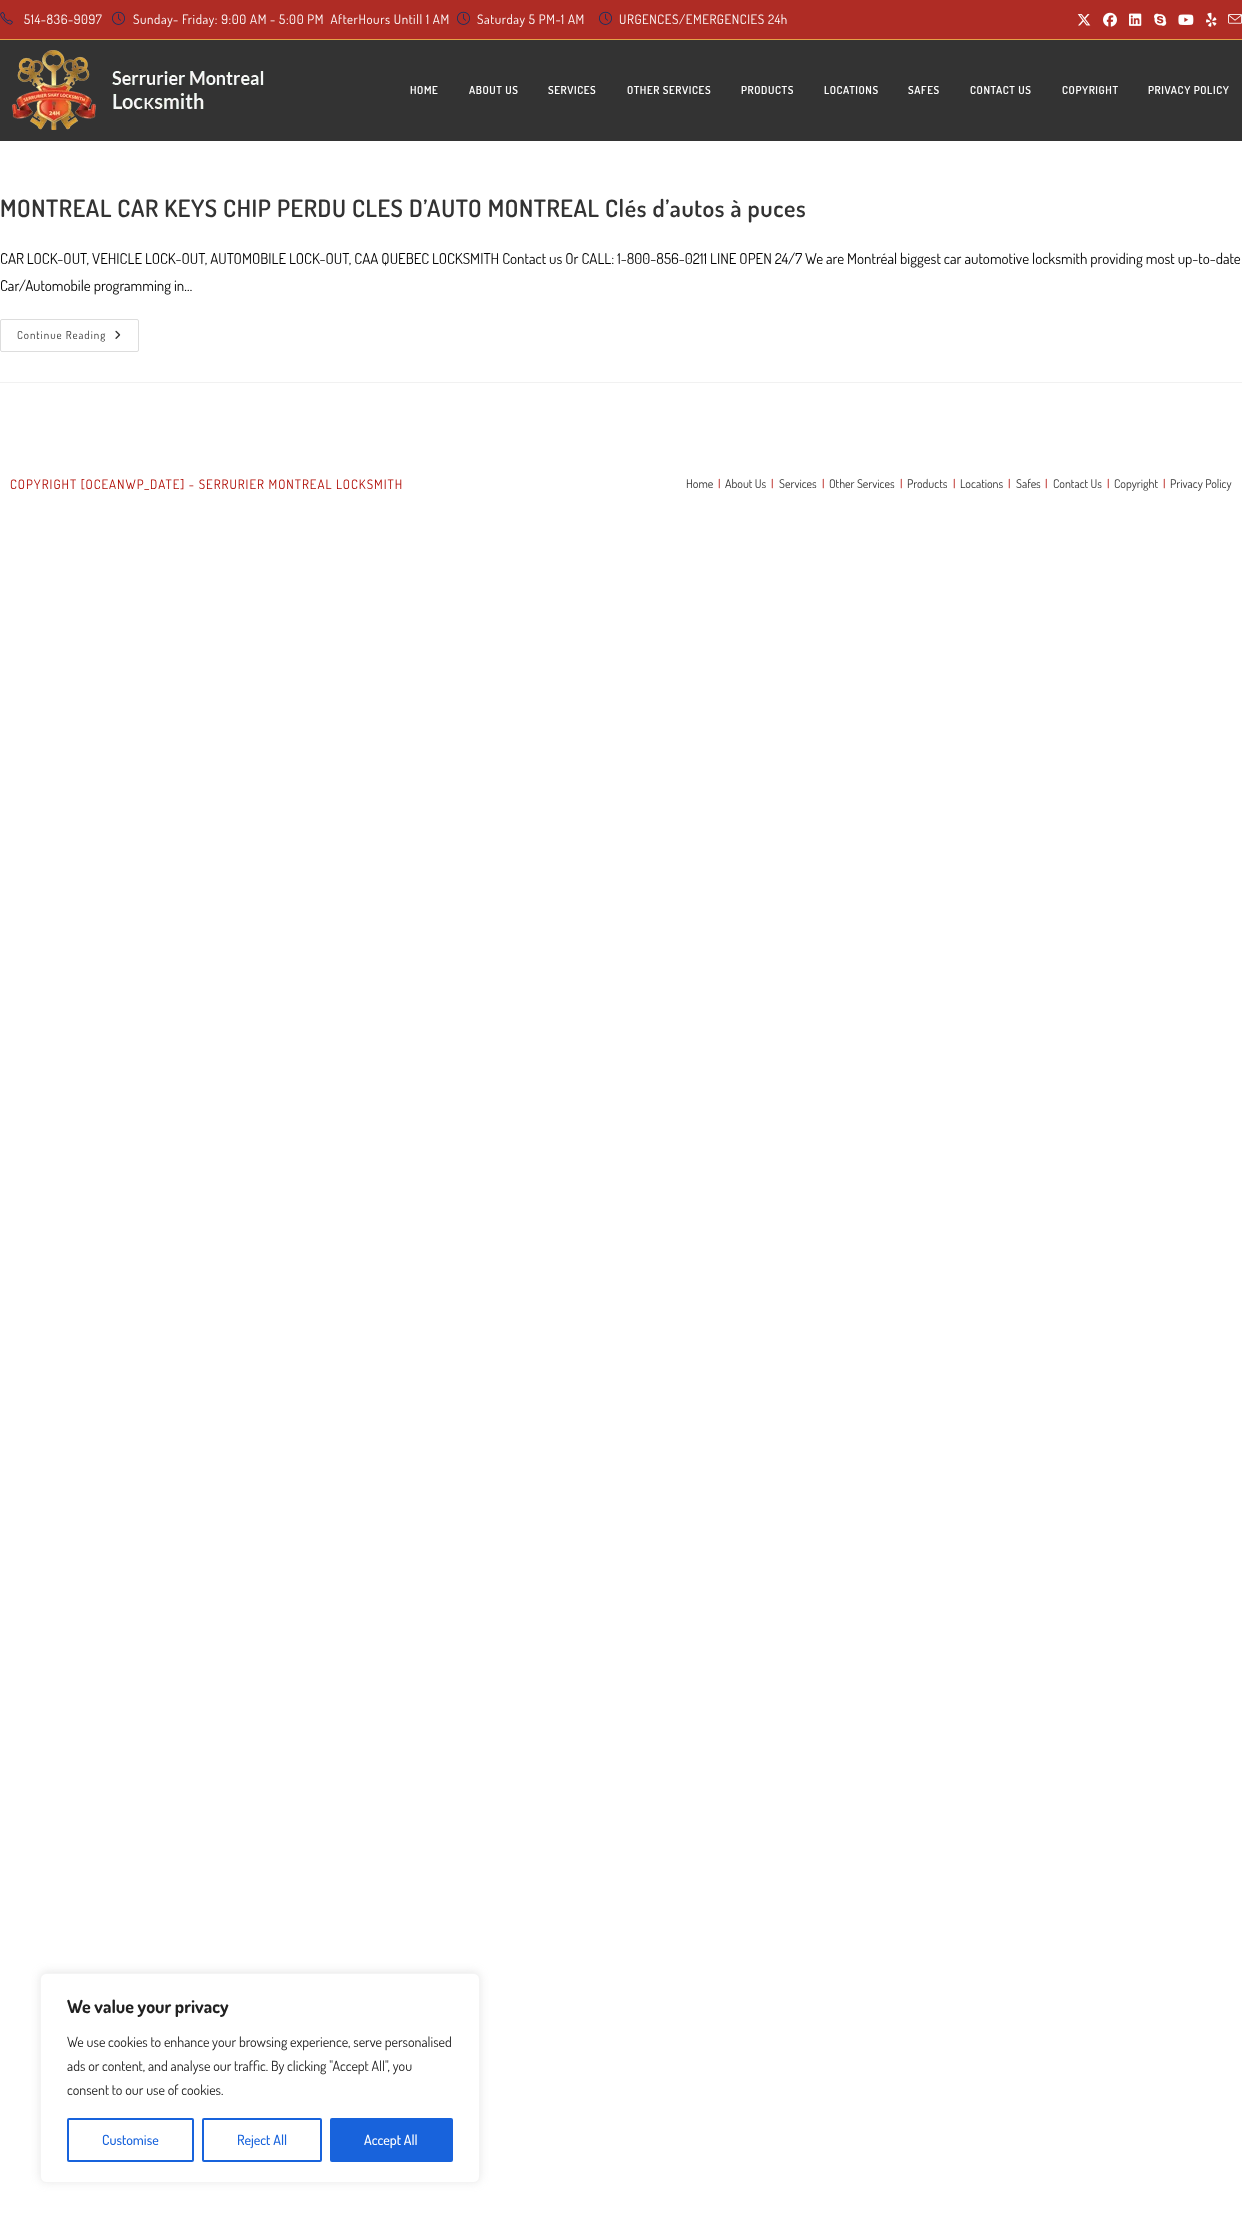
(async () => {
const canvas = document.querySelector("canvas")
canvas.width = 1242
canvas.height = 2223
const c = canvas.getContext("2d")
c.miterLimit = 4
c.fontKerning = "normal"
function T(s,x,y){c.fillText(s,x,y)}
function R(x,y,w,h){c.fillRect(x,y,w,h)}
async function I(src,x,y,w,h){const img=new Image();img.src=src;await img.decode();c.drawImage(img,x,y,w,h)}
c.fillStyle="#fff"
R(0,0,1242,2223)
c.fillStyle="#af2c25"
R(0,0,1242,39)
c.fillStyle="#e5a149"
R(0,39,1242,1)
await I("1.png",0,12,13,13)
c.letterSpacing="0.6px"
c.font="13px Dosis"
c.fillStyle="#fff"
T("514-836-9097",24,24)
await I("2.png",112,11,13,14)
T("Sunday- Friday: 9:00 AM - 5:00 PM  AfterHours Untill 1 AM",133,24)
await I("2.png",457,11,13,14)
T("Saturday 5 PM-1 AM",477,24)
await I("2.png",599,11,13,14)
T("URGENCES/EMERGENCIES 24h",619,24)
await I("3.png",1077,14,14,12)
await I("4.png",1103,12,14,15)
await I("5.png",1129,13,13,13)
await I("6.png",1154,13,13,13)
await I("7.png",1178,14,16,11)
await I("8.png",1206,12,11,15)
await I("9.png",1228,14,14,10)
c.fillStyle="#333"
R(0,40,1242,101)
await I("10.png",12,50,252,80)
c.font="600 11px Dosis"
c.fillStyle="#fff"
T("HOME",410,94)
T("ABOUT US",469,94)
T("SERVICES",548,94)
T("OTHER SERVICES",627,94)
T("PRODUCTS",741,94)
T("LOCATIONS",824,94)
T("SAFES",908,94)
T("CONTACT US",970,94)
T("COPYRIGHT",1062,94)
T("PRIVACY POLICY",1148,94)
c.fillStyle="#f1f1f1"
R(0,382,1242,1)
c.font="600 24px Dosis"
c.fillStyle="#333"
T("MONTREAL CAR KEYS CHIP PERDU CLES D’AUTO MONTREAL Clés d’autos à puces",0,217)
c.letterSpacing="0px"
c.font="15px Dosis"
c.fillStyle="#000"
T("CAR LOCK-OUT, VEHICLE LOCK-OUT, AUTOMOBILE LOCK-OUT, CAA QUEBEC LOCKSMITH Contact us Or CALL: 1-800-856-0211 LINE OPEN 24/7 We are Montréal biggest car automotive locksmith providing most up-to-date",0,264)
T("Car/Automobile programming in…",0,291)
c.beginPath()
c.roundRect(.5,319.5,138,32,1.5)
c.strokeStyle="#ddd"
c.stroke()
c.letterSpacing="1px"
c.font="11px Dosis"
c.fillStyle="#333"
T("Continue Reading",17,339)
await I("11.png",115,330,6,9)
c.font="13px Dosis"
c.fillStyle="#af0800"
T("COPYRIGHT [OCEANWP_DATE] - SERRURIER MONTREAL LOCKSMITH",10,489)
c.letterSpacing="0px"
c.font="12px Dosis"
c.fillStyle="#333"
T("Home",686,488)
c.fillStyle="#af0800"
T("|",718,488)
c.fillStyle="#333"
T("About Us",725,488)
c.fillStyle="#af0800"
T("|",771,488)
c.fillStyle="#333"
T("Services",779,488)
c.fillStyle="#af0800"
T("|",822,488)
c.fillStyle="#333"
T("Other Services",829,488)
c.fillStyle="#af0800"
T("|",900,488)
c.fillStyle="#333"
T("Products",907,488)
c.fillStyle="#af0800"
T("|",953,488)
c.fillStyle="#333"
T("Locations",960,488)
c.fillStyle="#af0800"
T("|",1008,488)
c.fillStyle="#333"
T("Safes",1016,488)
c.fillStyle="#af0800"
T("|",1045,488)
c.fillStyle="#333"
T("Contact Us",1053,488)
c.fillStyle="#af0800"
T("|",1107,488)
c.fillStyle="#333"
T("Copyright",1114,488)
c.fillStyle="#af0800"
T("|",1163,488)
c.fillStyle="#333"
T("Privacy Policy",1170,488)
c.fillStyle="#acabab4d"
c.filter="blur(5px)"
c.beginPath()
c.roundRect(40,1972,440,210,6)
c.fill()
c.filter="none"
c.fillStyle="#fff"
c.beginPath()
c.roundRect(40.5,1973.5,439,209,5.5)
c.fill()
c.strokeStyle="#f4f4f4"
c.stroke()
c.font="bold 18px Dosis"
c.fillStyle="#212121"
T("We value your privacy",67,2013)
c.font="14px Dosis"
T("We use cookies to enhance your browsing experience, serve personalised",67,2047)
T("ads or content, and analyse our traffic. By clicking \"Accept All\", you",67,2071)
T("consent to our use of cookies.",67,2095)
c.beginPath()
c.roundRect(68,2119,125,42,1)
c.strokeStyle="#1863dc"
c.lineWidth=2
c.stroke()
c.font="500 14px Dosis"
c.fillStyle="#1863dc"
T("Customise",102,2145)
c.beginPath()
c.roundRect(203,2119,118,42,1)
c.stroke()
T("Reject All",237,2145)
c.beginPath()
c.roundRect(331,2119,121,42,1)
c.fill()
c.stroke()
c.fillStyle="#fff"
T("Accept All",364,2145)
})()
